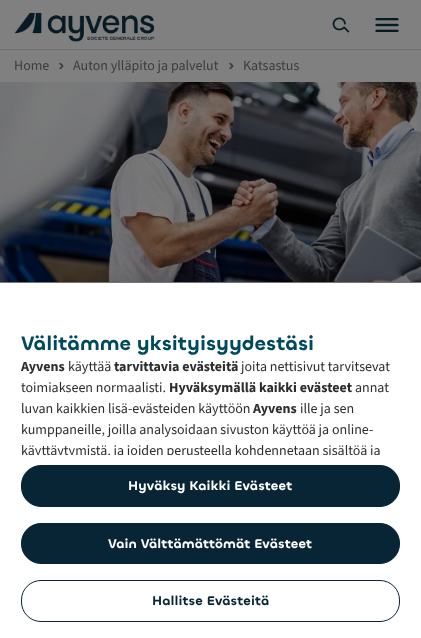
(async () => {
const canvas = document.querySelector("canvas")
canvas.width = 421
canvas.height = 638
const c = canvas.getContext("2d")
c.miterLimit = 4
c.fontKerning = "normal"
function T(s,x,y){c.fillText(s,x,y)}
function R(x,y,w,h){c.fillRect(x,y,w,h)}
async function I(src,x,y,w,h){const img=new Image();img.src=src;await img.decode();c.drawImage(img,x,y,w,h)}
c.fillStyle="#808080"
R(0,0,421,638)
c.fillStyle="#6f6f6f"
R(0,49,421,1)
await I("1.png",14,12,141,30)
await I("2.png",332,17,18,16)
await I("3.png",375,18,24,14)
c.font="14px 'Source Sans 3'"
c.fillStyle="#3b3c3c"
T("Home",14,70)
await I("4.png",59,62,5,8)
T("Auton ylläpito ja palvelut",73,70)
await I("4.png",229,62,5,8)
T("Katsastus",243,70)
await I("5.png",0,82,421,200)
c.fillStyle="#00000033"
c.filter="blur(9px)"
c.beginPath()
c.rect(0,283,421,355)
c.fill()
c.filter="none"
c.fillStyle="#fff"
R(0,283,421,355)
c.font="600 20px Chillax"
c.fillStyle="#004a5d"
T("Välitämme yksityisyydestäsi",21,350)
c.font="bold 14px 'Source Sans 3'"
c.fillStyle="#2d2d2d"
T("Ayvens",21,371)
c.font="14px 'Source Sans 3'"
T("käyttää",68,371)
c.font="bold 14px 'Source Sans 3'"
T("tarvittavia evästeitä",114,371)
c.font="14px 'Source Sans 3'"
T("joita nettisivut tarvitsevat",241,371)
T("toimiakseen normaalisti.",21,392)
c.font="bold 14px 'Source Sans 3'"
T("Hyväksymällä kaikki evästeet",169,392)
c.font="14px 'Source Sans 3'"
T("annat",355,392)
T("luvan kaikkien lisä-evästeiden käyttöön",21,413)
c.font="bold 14px 'Source Sans 3'"
T("Ayvens",253,413)
c.font="14px 'Source Sans 3'"
T("ille ja sen",300,413)
T("kumppaneille, joilla analysoidaan sivuston käyttöä ja online-",21,434)
c.save()
c.beginPath()
c.rect(21,357,379,98)
c.clip()
T("käyttäytymistä, ja joiden perusteella kohdennetaan sisältöä ja",21,455)
c.restore()
c.fillStyle="#072534"
c.beginPath()
c.roundRect(21.5,465.5,378,41,19.5)
c.fill()
c.strokeStyle="#072534"
c.stroke()
c.letterSpacing="0.1px"
c.font="600 13px Chillax"
c.fillStyle="#fff"
T("Hyväksy Kaikki Evästeet",128,490)
c.fillStyle="#072534"
c.beginPath()
c.roundRect(21.5,523.5,378,40,19.5)
c.fill()
c.stroke()
c.fillStyle="#fff"
T("Vain Välttämättömät Evästeet",108,548)
c.beginPath()
c.roundRect(21.5,580.5,378,41,19.5)
c.stroke()
c.fillStyle="#072534"
T("Hallitse Evästeitä",152,605)
})()
